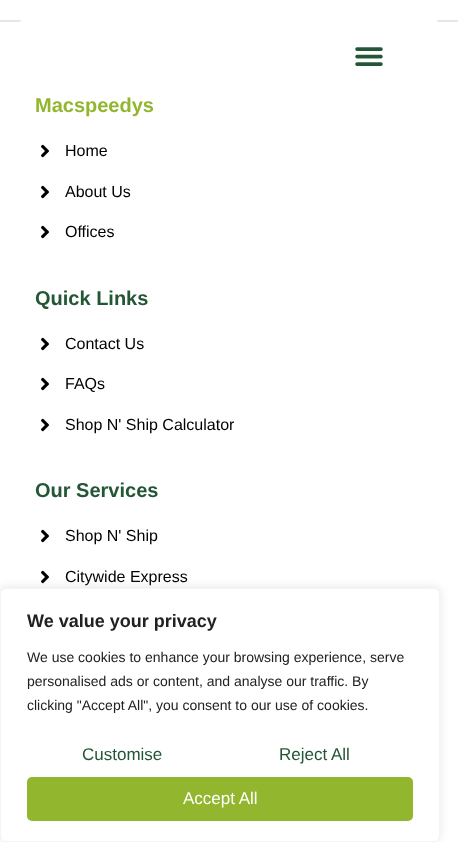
(async () => {
const canvas = document.querySelector("canvas")
canvas.width = 458
canvas.height = 842
const c = canvas.getContext("2d")
c.miterLimit = 4
c.fontKerning = "normal"
function T(s,x,y){c.fillText(s,x,y)}
function R(x,y,w,h){c.fillRect(x,y,w,h)}
function Q(x,y,w,h,r){c.beginPath();c.roundRect(x,y,w,h,r);c.fill()}
async function I(src,x,y,w,h){const img=new Image();img.src=src;await img.decode();c.drawImage(img,x,y,w,h)}
c.fillStyle="#fff"
R(0,0,458,842)
c.fillStyle="#e6e6e6"
R(0,20,458,2)
c.fillStyle="#fff"
Q(15,15,428,81,20)
await I("1.png",355,47,28,19)
c.font="bold 20px Liberation Sans"
c.fillStyle="#92b62e"
T("Macspeedys",35,112)
await I("2.png",41,144,8,14)
c.font="16px Liberation Sans"
c.fillStyle="#000"
T("Home",65,156)
await I("2.png",41,185,8,14)
T("About Us",65,197)
await I("2.png",41,225,8,14)
T("Offices",65,237)
c.font="bold 20px Liberation Sans"
c.fillStyle="#235635"
T("Quick Links",35,305)
await I("2.png",41,337,8,14)
c.font="16px Liberation Sans"
c.fillStyle="#000"
T("Contact Us",65,349)
await I("2.png",41,377,8,14)
T("FAQs",65,389)
await I("2.png",41,418,8,14)
T("Shop N' Ship Calculator",65,430)
c.font="bold 20px Liberation Sans"
c.fillStyle="#235635"
T("Our Services",35,497)
await I("2.png",41,529,8,14)
c.font="16px Liberation Sans"
c.fillStyle="#000"
T("Shop N' Ship",65,541)
await I("2.png",41,570,8,14)
T("Citywide Express",65,582)
c.fillStyle="#acabab4d"
c.filter="blur(5px)"
c.beginPath()
c.roundRect(0,587,440,254,6)
c.fill()
c.filter="none"
c.fillStyle="#fff"
c.beginPath()
c.roundRect(.5,588.5,439,253,5.5)
c.fill()
c.strokeStyle="#f4f4f4"
c.stroke()
c.font="bold 18px Liberation Sans"
c.fillStyle="#212121"
T("We value your privacy",27,627)
c.font="14px Liberation Sans"
T("We use cookies to enhance your browsing experience, serve",27,662)
T("personalised ads or content, and analyse our traffic. By",27,686)
T("clicking \"Accept All\", you consent to our use of cookies.",27,710)
c.font="17px Liberation Sans"
c.fillStyle="#235635"
T("Customise",82,760)
T("Reject All",279,760)
c.fillStyle="#92b62e"
Q(27,777,386,44,5)
c.fillStyle="#fff"
T("Accept All",183,804)
})()
